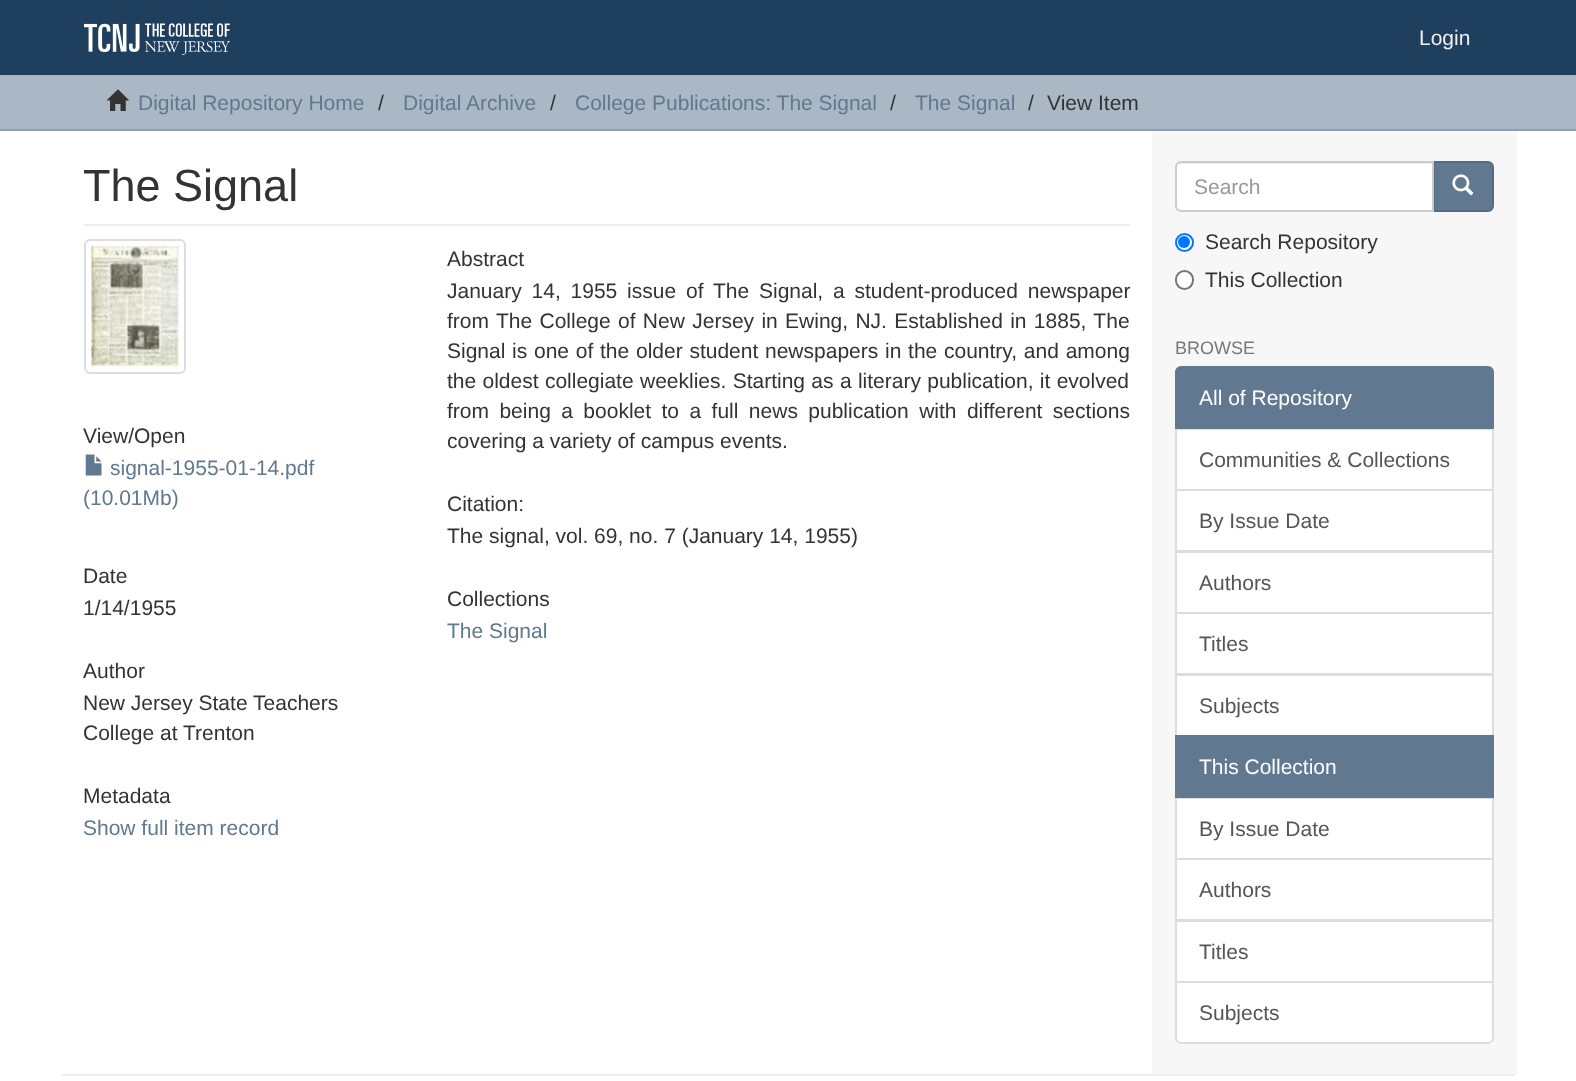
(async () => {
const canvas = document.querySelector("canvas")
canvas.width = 1576
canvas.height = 1081
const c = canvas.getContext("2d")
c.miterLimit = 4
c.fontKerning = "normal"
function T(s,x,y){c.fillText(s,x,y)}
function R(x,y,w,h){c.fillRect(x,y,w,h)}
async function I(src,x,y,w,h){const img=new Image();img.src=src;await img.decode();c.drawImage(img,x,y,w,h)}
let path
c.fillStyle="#fff"
R(0,0,1576,1081)
c.fillStyle="#1f3f5e"
R(0,0,1576,75)
await I("1.png",84,23,146,33)
c.font="21px Liberation Sans"
c.fillStyle="#eee"
T("Login",1419,45)
c.fillStyle="#aab8c6"
R(0,75,1576,54)
c.fillStyle="#8b9eb2"
R(0,129,1576,2)
await I("2.png",106,89,24,22)
c.fillStyle="#607890"
T("Digital Repository Home",138,110)
c.fillStyle="#333"
T("/",378,110)
c.fillStyle="#607890"
T("Digital Archive",403,110)
c.fillStyle="#333"
T("/",550,110)
c.fillStyle="#607890"
T("College Publications: The Signal",575,110)
c.fillStyle="#333"
T("/",890,110)
c.fillStyle="#607890"
T("The Signal",915,110)
c.fillStyle="#333"
T("/",1028,110)
T("View Item",1047,110)
c.fillStyle="#f7f7f7"
R(1152,131,365,943)
c.fillStyle="#eee"
R(84,224,1046,2)
c.font="45px Liberation Sans"
c.fillStyle="#333"
T("The Signal",83,201)
c.beginPath()
c.roundRect(85,240,100,133,5)
c.strokeStyle="#ddd"
c.lineWidth=2
c.stroke()
await I("3.png",91,245,88,122)
c.font="21px Liberation Sans"
T("View/Open",83,443)
await I("4.png",85,454,17,22)
c.fillStyle="#607890"
T("signal-1955-01-14.pdf",110,475)
T("(10.01Mb)",83,505)
c.fillStyle="#333"
T("Date",83,583)
T("1/14/1955",83,615)
T("Author",83,678)
T("New Jersey State Teachers",83,710)
T("College at Trenton",83,740)
T("Metadata",83,803)
c.fillStyle="#607890"
T("Show full item record",83,835)
c.fillStyle="#333"
T("Abstract",447,266)
c.wordSpacing="4px"
T("January 14, 1955 issue of The Signal, a student-produced newspaper",447,298)
c.wordSpacing="1.5px"
T("from The College of New Jersey in Ewing, NJ. Established in 1885, The",447,328)
c.wordSpacing="0.9px"
T("Signal is one of the older student newspapers in the country, and among",447,358)
c.wordSpacing="0.5px"
T("the oldest collegiate weeklies. Starting as a literary publication, it evolved",447,388)
c.wordSpacing="4.6px"
T("from being a booklet to a full news publication with different sections",447,418)
c.wordSpacing="0px"
T("covering a variety of campus events.",447,448)
T("Citation:",447,511)
T("The signal, vol. 69, no. 7 (January 14, 1955)",447,543)
T("Collections",447,606)
c.fillStyle="#607890"
T("The Signal",447,638)
c.beginPath()
c.roundRect(1434,162,59,49,[0,5,5,0])
c.fill()
c.strokeStyle="#566b81"
c.stroke()
c.fillStyle="#fff"
c.beginPath()
c.roundRect(1175,161,259,51,[6,0,0,6])
c.fill()
c.fillStyle="#ececec"
path = new Path2D("M1180 164h252v46h1v-48h-252c-3 0-5 3-5 6c0-2 2-4 4-4z")
c.fill(path)
c.beginPath()
c.roundRect(1176,162,257,49,[5,0,0,5])
c.strokeStyle="#ccc"
c.stroke()
c.fillStyle="#999"
T("Search",1194,194)
await I("5.png",1452,174,22,22)
c.fillStyle="#fff"
c.beginPath()
c.arc(1184.5,242.5,8.5,0,7)
c.fill()
c.strokeStyle="#0075ff"
c.stroke()
c.fillStyle="#0075ff"
c.beginPath()
c.arc(1184,242,6,0,7)
c.fill()
c.fillStyle="#333"
T("Search Repository",1205,249)
c.fillStyle="#fff"
c.beginPath()
c.roundRect(1176,271,17,18,8.5)
c.fill()
c.strokeStyle="#767676"
c.stroke()
c.fillStyle="#333"
T("This Collection",1205,287)
c.font="18px Liberation Sans"
c.fillStyle="#777"
T("BROWSE",1175,354)
c.fillStyle="#fff"
c.beginPath()
c.rect(1176,429,317,61)
c.fill()
c.strokeStyle="#ddd"
c.stroke()
c.fillStyle="#607890"
c.beginPath()
c.roundRect(1176,367,317,61,[5,5,0,0])
c.fill()
c.strokeStyle="#607890"
c.stroke()
c.font="21px Liberation Sans"
c.fillStyle="#fff"
T("All of Repository",1199,405)
c.fillStyle="#555"
T("Communities & Collections",1199,467)
c.fillStyle="#fff"
c.beginPath()
c.rect(1176,490,317,61)
c.fill()
c.strokeStyle="#ddd"
c.stroke()
c.fillStyle="#555"
T("By Issue Date",1199,528)
c.fillStyle="#fff"
c.beginPath()
c.rect(1176,552,317,61)
c.fill()
c.stroke()
c.fillStyle="#555"
T("Authors",1199,590)
c.fillStyle="#fff"
c.beginPath()
c.rect(1176,613,317,61)
c.fill()
c.stroke()
c.fillStyle="#555"
T("Titles",1199,651)
c.fillStyle="#fff"
c.beginPath()
c.rect(1176,675,317,61)
c.fill()
c.stroke()
c.fillStyle="#555"
T("Subjects",1199,713)
c.fillStyle="#fff"
c.beginPath()
c.rect(1176,798,317,61)
c.fill()
c.stroke()
c.fillStyle="#607890"
R(1175,735,319,63)
c.fillStyle="#fff"
T("This Collection",1199,774)
c.fillStyle="#555"
T("By Issue Date",1199,836)
c.fillStyle="#fff"
c.beginPath()
c.rect(1176,859,317,61)
c.fill()
c.stroke()
c.fillStyle="#555"
T("Authors",1199,897)
c.fillStyle="#fff"
c.beginPath()
c.rect(1176,921,317,61)
c.fill()
c.stroke()
c.fillStyle="#555"
T("Titles",1199,959)
c.fillStyle="#fff"
c.beginPath()
c.roundRect(1176,982,317,61,[0,0,5,5])
c.fill()
c.stroke()
c.fillStyle="#555"
T("Subjects",1199,1020)
c.fillStyle="#eee"
R(62,1074,1453,2)
})()
